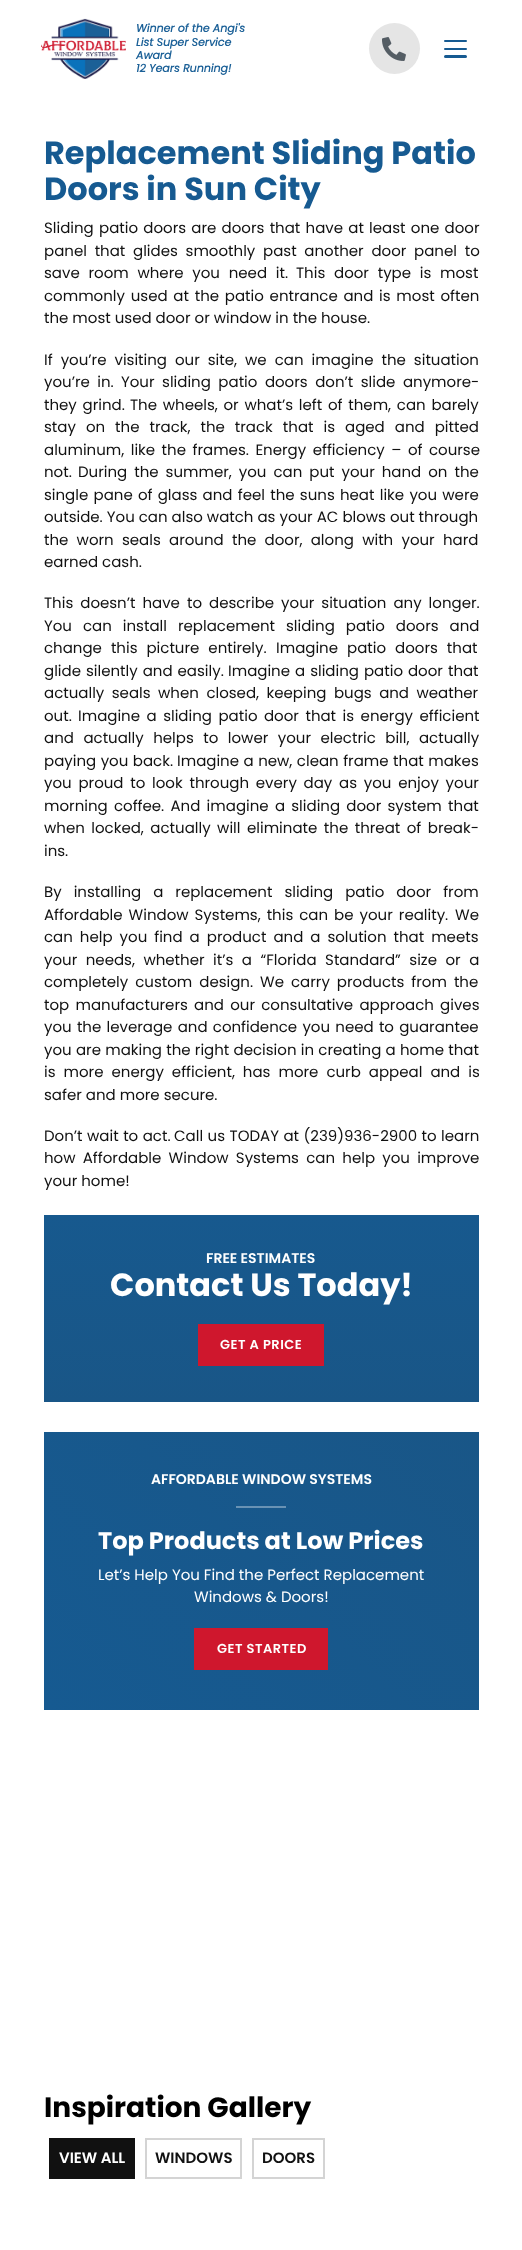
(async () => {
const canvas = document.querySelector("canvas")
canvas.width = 522
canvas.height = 2250
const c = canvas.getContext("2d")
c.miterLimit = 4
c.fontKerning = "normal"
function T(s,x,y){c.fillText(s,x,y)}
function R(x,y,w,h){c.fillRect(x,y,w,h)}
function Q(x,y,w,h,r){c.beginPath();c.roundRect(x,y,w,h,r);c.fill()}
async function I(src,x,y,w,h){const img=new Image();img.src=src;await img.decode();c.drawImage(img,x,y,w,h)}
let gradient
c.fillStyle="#fff"
R(0,0,522,2250)
await I("1.png",41,18,85,61)
c.font="italic bold 11px Poppins"
c.fillStyle="#1b6097"
T("Winner of the Angi's",136,32)
T("List Super Service",136,46)
T("Award",136,59)
T("12 Years Running!",136,72)
c.fillStyle="#e5e5e5"
c.beginPath()
c.arc(394.5,48.5,25.5,0,7)
c.fill()
await I("2.png",382,37,24,24)
c.fillStyle="#165a91"
Q(444,40,23,2,1)
Q(444,48,23,2,1)
Q(444,55,23,3,1.5)
c.font="bold 32px Poppins"
T("Replacement Sliding Patio",44,164)
T("Doors in Sun City",44,200)
c.wordSpacing="1.25px"
c.font="15px Poppins"
c.fillStyle="#111"
T("Sliding patio doors are doors that have at least one door",44,233)
c.wordSpacing="3.75px"
T("panel that glides smoothly past another door panel to",44,256)
c.wordSpacing="4.75px"
T("save room where you need it.",44,278)
T("This door type is most",296,278)
c.wordSpacing="1.75px"
T("commonly used at the patio entrance and is most often",44,301)
c.wordSpacing="0px"
T("the most used door or window in the house.",44,323)
c.wordSpacing="4px"
T("If you’re visiting our site, we can imagine the situation",44,365)
c.wordSpacing="3.5px"
T("you’re in.",44,387)
T("Your sliding patio doors don’t slide anymore-",121,387)
c.wordSpacing="1.75px"
T("they grind.",44,410)
T("The wheels, or what’s left of them, can barely",130,410)
c.wordSpacing="6px"
T("stay on the track, the track that is aged and pitted",44,432)
c.wordSpacing="2.5px"
T("aluminum, like the frames. Energy efficiency – of course",44,455)
c.wordSpacing="0px"
T("not.",44,477)
c.wordSpacing="3px"
T("During the summer, you can put your hand on the",78,477)
c.wordSpacing="1.25px"
T("single pane of glass and feel the suns heat like you were",44,500)
c.wordSpacing="0px"
T("outside. You can also watch as your AC blows out through",44,522)
c.wordSpacing="4.25px"
T("the worn seals around the door, along with your hard",44,545)
c.wordSpacing="0px"
T("earned cash.",44,567)
c.wordSpacing="3px"
T("This doesn’t have to describe your situation any longer.",44,608)
c.wordSpacing="7px"
T("You can install replacement sliding patio doors and",44,631)
c.wordSpacing="5px"
T("change this picture entirely.",44,653)
T("Imagine patio doors that",276,653)
c.wordSpacing="1px"
T("glide silently and easily.",44,676)
T("Imagine a sliding patio door that",228,676)
c.wordSpacing="3.5px"
T("actually seals when closed, keeping bugs and weather",44,698)
c.wordSpacing="0px"
T("out.",44,721)
c.wordSpacing="2.5px"
T("Imagine a sliding patio door that is energy efficient",78,721)
c.wordSpacing="5.5px"
T("and actually helps to lower your electric bill, actually",44,743)
c.wordSpacing="0.5px"
T("paying you back.",44,766)
T("Imagine a new, clean frame that makes",177,766)
c.wordSpacing="2.75px"
T("you proud to look through every day as you enjoy your",44,788)
c.wordSpacing="2.25px"
T("morning coffee. And imagine a sliding door system that",44,811)
c.wordSpacing="2.5px"
T("when locked, actually will eliminate the threat of break-",44,833)
c.wordSpacing="0px"
T("ins.",44,856)
c.wordSpacing="8px"
T("By installing a replacement sliding patio door from",44,897)
c.wordSpacing="2px"
T("Affordable Window Systems, this can be your reality.",44,920)
c.wordSpacing="0px"
T("We",455,920)
c.wordSpacing="3px"
T("can help you find a product and a solution that meets",44,942)
c.wordSpacing="4.5px"
T("your needs, whether it’s a “Florida Standard” size or a",44,965)
c.wordSpacing="3px"
T("completely custom design.",44,987)
T("We carry products from the",260,987)
c.wordSpacing="2.25px"
T("top manufacturers and our consultative approach gives",44,1010)
c.wordSpacing="1.25px"
T("you the leverage and confidence you need to guarantee",44,1032)
c.wordSpacing="0.25px"
T("you are making the right decision in creating a home that",44,1055)
c.wordSpacing="4px"
T("is more energy efficient, has more curb appeal and is",44,1077)
c.wordSpacing="0px"
T("safer and more secure.",44,1100)
c.wordSpacing="0.5px"
T("Don’t wait to act.",44,1141)
T("Call us TODAY at (239)936-2900 to learn",174,1141)
c.wordSpacing="3.25px"
T("how Affordable Window Systems can help you improve",44,1163)
c.wordSpacing="0px"
T("your home!",44,1186)
gradient = c.createLinearGradient(262,1215,262,1402)
gradient.addColorStop(0,"#17598e")
gradient.addColorStop(1,"#195687")
c.fillStyle = gradient
R(44,1215,435,187)
c.font="600 14px Poppins"
c.fillStyle="#fff"
T("FREE ESTIMATES",206,1263)
c.font="bold 32px Poppins"
T("Contact Us Today!",110,1296)
c.fillStyle="#cf172d"
R(198,1324,126,42)
c.letterSpacing="0.5px"
c.font="600 13px Poppins"
c.fillStyle="#fff"
T("GET A PRICE",220,1349)
gradient = c.createLinearGradient(83,1749,443,1389)
gradient.addColorStop(0,"#165a91")
gradient.addColorStop(1,"#195687")
c.fillStyle = gradient
R(44,1432,435,278)
c.letterSpacing="0px"
c.font="600 14px Poppins"
c.fillStyle="#fff"
T("AFFORDABLE WINDOW SYSTEMS",151,1484)
c.fillStyle="#6992b4"
R(236,1506,50,2)
c.font="bold 24px Poppins"
c.fillStyle="#fff"
T("Top Products at Low Prices",98,1549)
c.font="15px Poppins"
T("Let’s Help You Find the Perfect Replacement",98,1580)
T("Windows & Doors!",194,1602)
c.fillStyle="#cf172d"
R(194,1628,134,42)
c.letterSpacing="0.5px"
c.font="600 13px Poppins"
c.fillStyle="#fff"
T("GET STARTED",217,1653)
c.letterSpacing="0px"
c.font="bold 28px Poppins"
c.fillStyle="#000"
T("Inspiration Gallery",44,2117)
c.fillStyle="#111"
R(49,2138,86,41)
c.font="600 15px Poppins"
c.fillStyle="#fff"
T("VIEW ALL",59,2163)
c.strokeStyle="#d4d4d4"
c.lineWidth=2
c.strokeRect(146,2139,95,39)
c.fillStyle="#111"
T("WINDOWS",155,2163)
c.strokeRect(253,2139,71,39)
T("DOORS",262,2163)
})()
